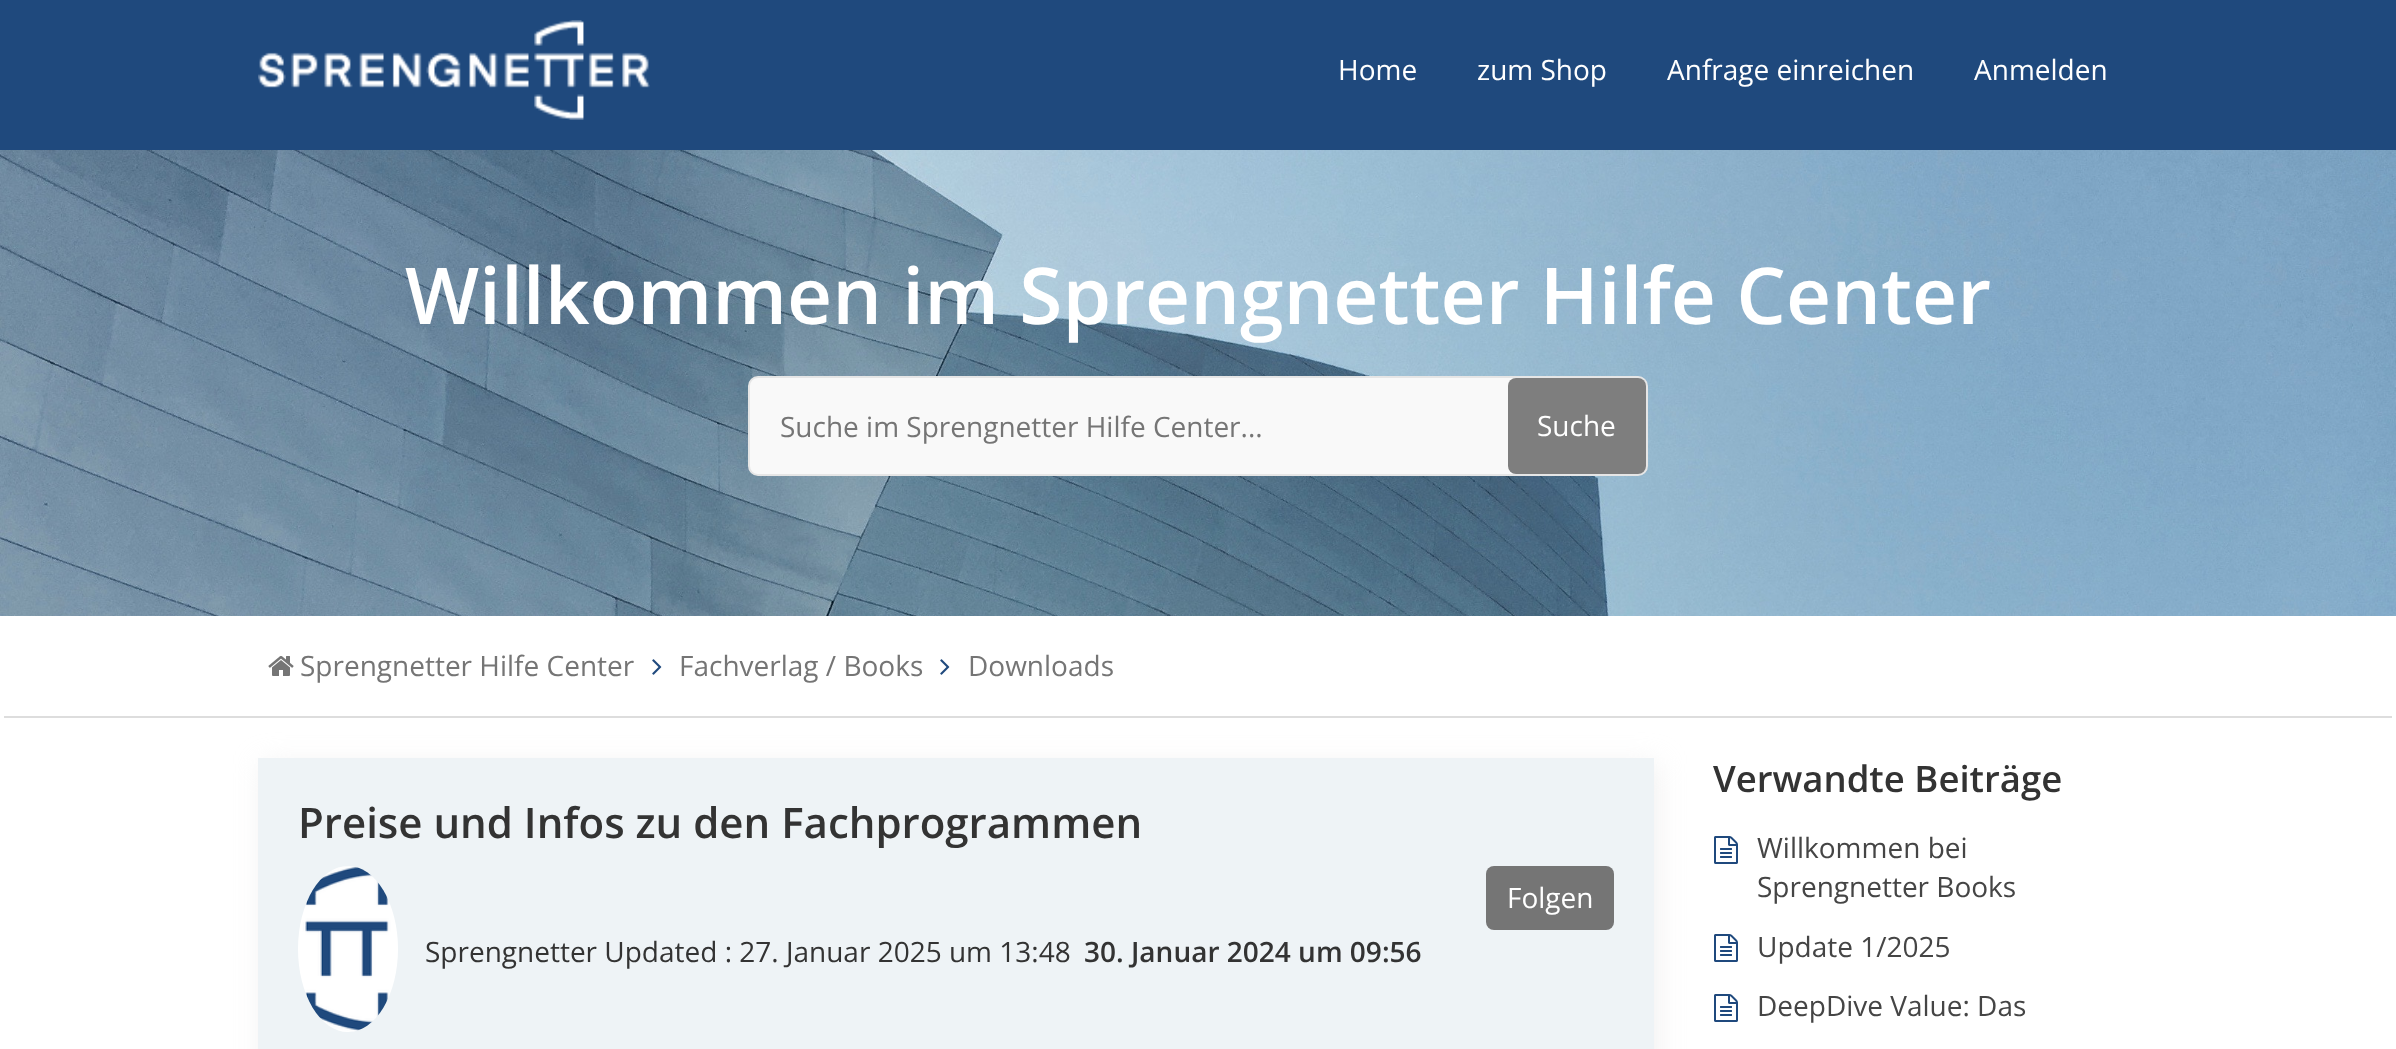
(async () => {
const canvas = document.querySelector("canvas")
canvas.width = 2396
canvas.height = 1049
const c = canvas.getContext("2d")
c.miterLimit = 4
c.fontKerning = "normal"
function T(s,x,y){c.fillText(s,x,y)}
function R(x,y,w,h){c.fillRect(x,y,w,h)}
function Q(x,y,w,h,r){c.beginPath();c.roundRect(x,y,w,h,r);c.fill()}
async function I(src,x,y,w,h){const img=new Image();img.src=src;await img.decode();c.drawImage(img,x,y,w,h)}
c.fillStyle="#fff"
R(0,0,2396,1049)
c.fillStyle="#1f497d"
R(0,0,2396,150)
await I("1.png",258,20,392,100)
c.font="28px Open Sans"
c.fillStyle="#fff"
T("Home",1338,80)
T("zum Shop",1477,80)
T("Anfrage einreichen",1667,80)
T("Anmelden",1974,80)
await I("2.png",0,150,2396,466)
c.font="600 78.4px Open Sans"
T("Willkommen im Sprengnetter Hilfe Center",405,324)
c.fillStyle="#f9f9f9"
c.beginPath()
c.roundRect(749,377,898,98,9)
c.fill()
c.strokeStyle="#e6e6e6"
c.lineWidth=2
c.stroke()
c.font="28px Open Sans"
c.fillStyle="#757575"
T("Suche im Sprengnetter Hilfe Center...",780,437)
c.fillStyle="#7e7e7e"
Q(1508,378,138,96,8)
c.fillStyle="#fff"
T("Suche",1537,436)
c.fillStyle="#ddd"
R(4,716,2388,2)
await I("3.png",268,656,26,20)
c.fillStyle="#757575"
T("Sprengnetter Hilfe Center",300,676)
await I("4.png",652,659,10,16)
T("Fachverlag / Books",679,676)
await I("4.png",940,659,10,16)
T("Downloads",968,676)
c.fillStyle="#e6e4e482"
c.filter="blur(14px)"
c.beginPath()
c.rect(262,764,1396,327)
c.fill()
c.filter="none"
c.fillStyle="#eef3f6"
R(258,758,1396,291)
c.font="600 42px Open Sans"
c.fillStyle="#333"
T("Preise und Infos zu den Fachprogrammen",298,838)
c.fillStyle="#757575"
Q(1486,866,128,64,8)
c.font="28px Open Sans"
c.fillStyle="#fff"
T("Folgen",1507,908)
await I("5.png",298,866,100,166)
c.fillStyle="#333"
T("Sprengnetter Updated : 27. Januar 2025 um 13:48",425,962)
c.font="600 28px Open Sans"
T("30. Januar 2024 um 09:56",1084,962)
c.font="600 36.5px Open Sans"
T("Verwandte Beiträge",1713,792)
await I("6.png",1714,836,24,28)
c.font="28px Open Sans"
c.fillStyle="#454545"
T("Willkommen bei",1757,858)
T("Sprengnetter Books",1757,897)
await I("6.png",1714,934,24,28)
T("Update 1/2025",1757,957)
await I("6.png",1714,994,24,28)
T("DeepDive Value: Das",1757,1016)
})()
